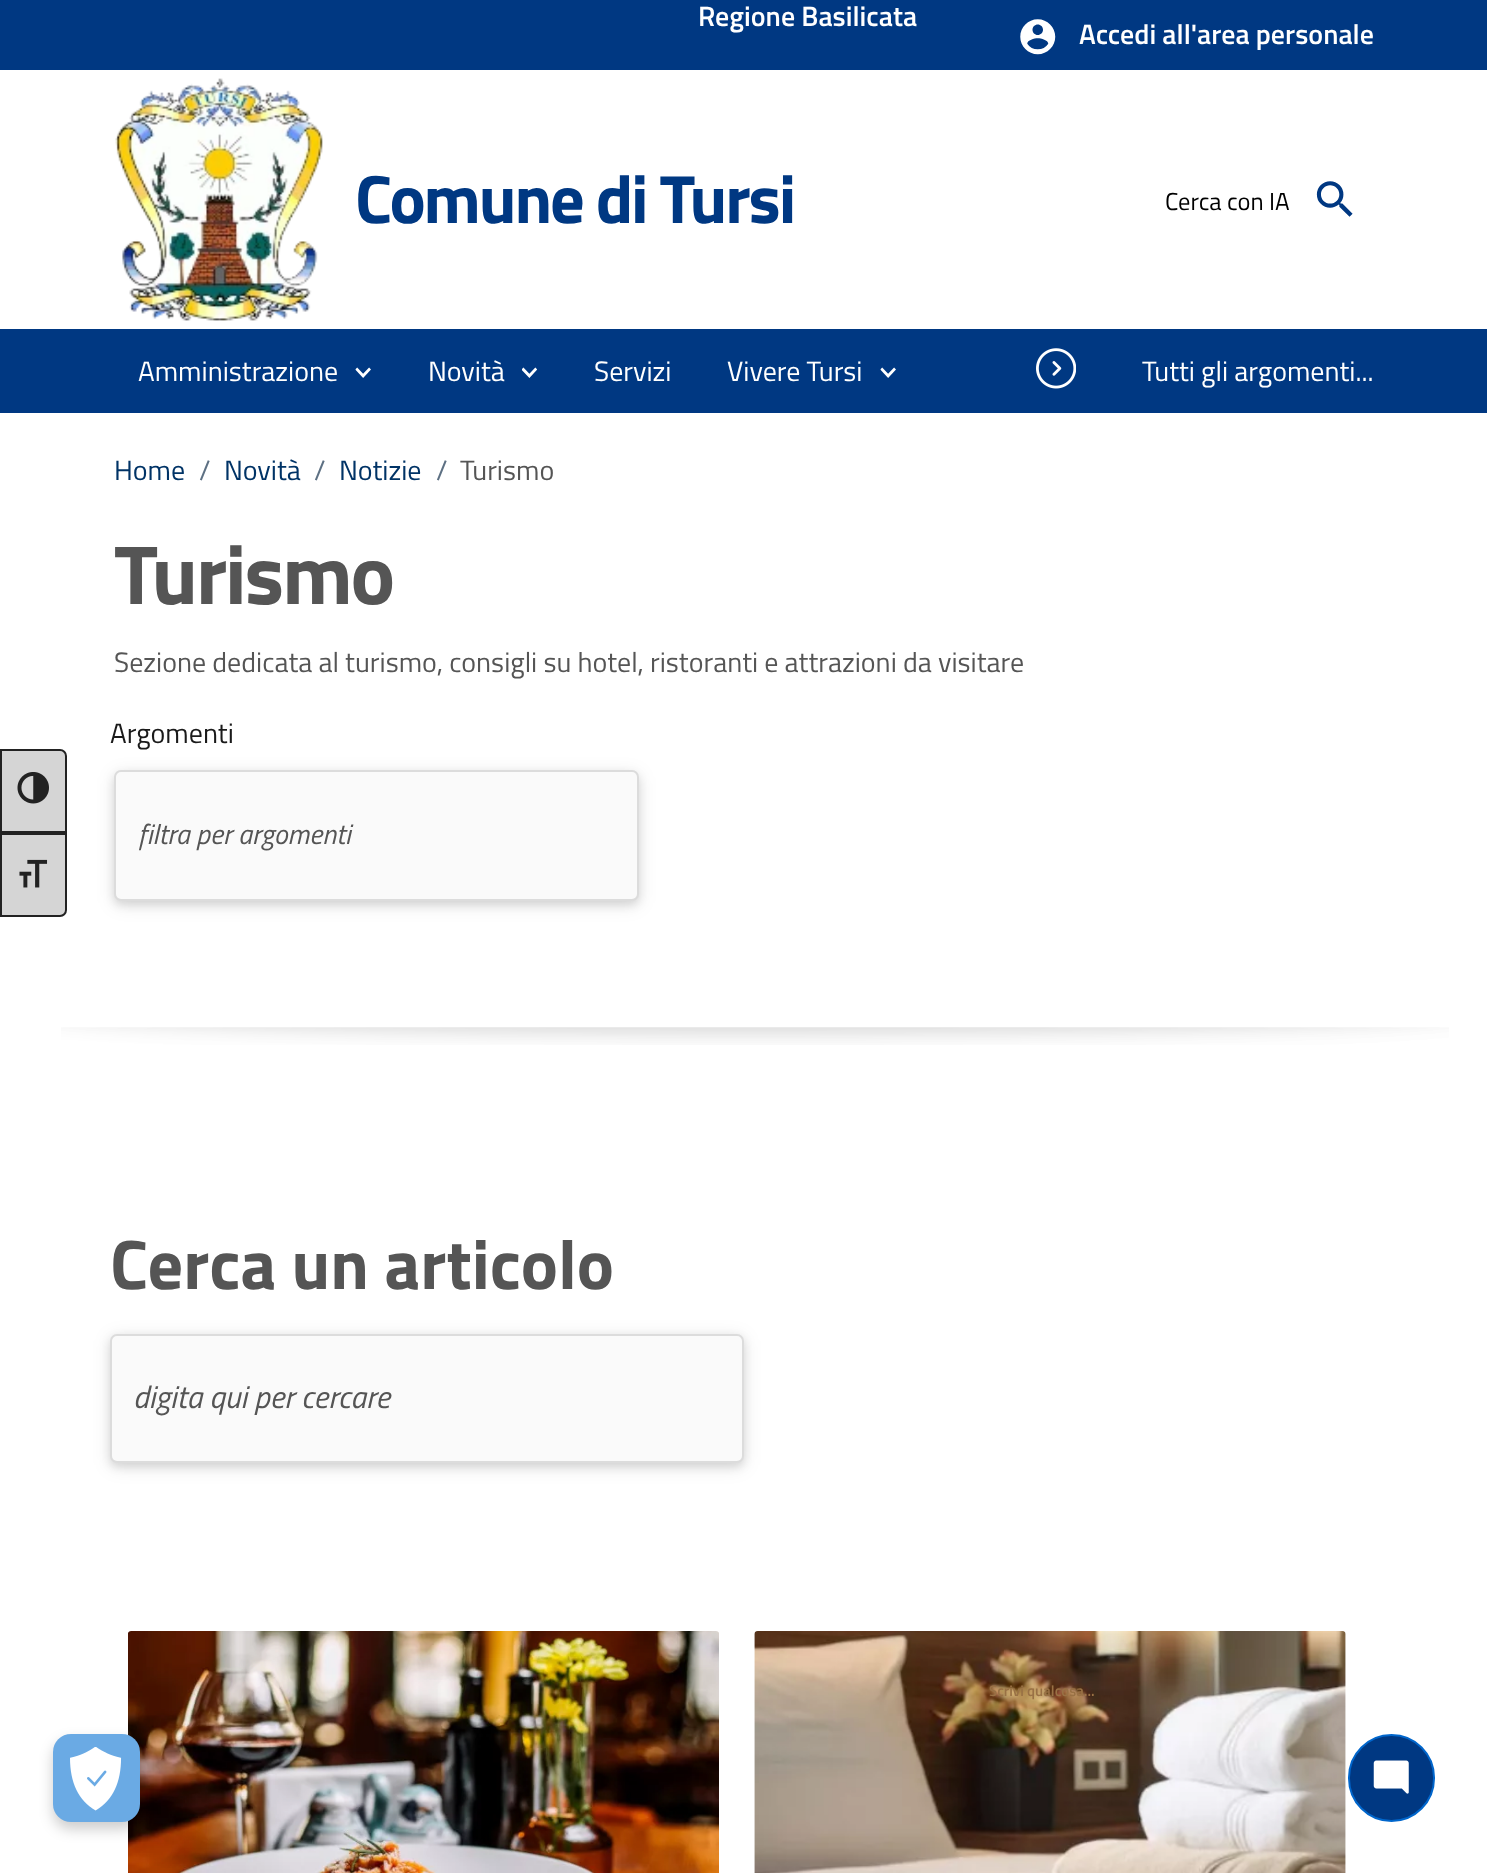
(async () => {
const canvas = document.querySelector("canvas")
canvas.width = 1487
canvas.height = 1873
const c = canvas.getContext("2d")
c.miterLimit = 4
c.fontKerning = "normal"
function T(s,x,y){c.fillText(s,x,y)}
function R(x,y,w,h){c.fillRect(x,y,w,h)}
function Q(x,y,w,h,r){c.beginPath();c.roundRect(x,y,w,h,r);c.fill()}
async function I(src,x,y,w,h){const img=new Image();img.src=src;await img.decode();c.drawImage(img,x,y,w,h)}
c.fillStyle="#fff"
R(0,0,1487,1873)
c.fillStyle="#d5d5d5"
c.beginPath()
c.roundRect(1,750,65,82,[0,6,0,0])
c.fill()
c.strokeStyle="#222"
c.lineWidth=2
c.stroke()
await I("1.png",17,772,32,32)
c.beginPath()
c.roundRect(1,834,65,82,[0,0,6,0])
c.fill()
c.stroke()
await I("2.png",19,859,29,29)
c.fillStyle="#003882"
R(0,0,1487,70)
c.font="600 28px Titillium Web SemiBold"
c.fillStyle="#fff"
T("Regione Basilicata",698,26)
await I("3.png",1020,19,36,36)
T("Accedi all'area personale",1079,44)
await I("4.png",115,78,208,243)
c.letterSpacing="-2.1px"
c.font="bold 68.25px Titillium Web"
c.fillStyle="#003882"
T("Comune di Tursi",355,223)
c.letterSpacing="0px"
c.font="24.5px Titillium Web"
c.fillStyle="#000"
T("Cerca con IA",1165,210)
await I("5.png",1316,181,37,36)
c.fillStyle="#003882"
R(0,329,1487,84)
c.font="28px Titillium Web"
c.fillStyle="#fff"
T("Amministrazione",138,381)
await I("6.png",355,367,16,11)
T("Novità",428,381)
await I("7.png",522,367,15,11)
T("Servizi",594,381)
T("Vivere Tursi",727,381)
await I("6.png",880,367,16,11)
await I("8.png",1036,348,40,41)
T("Tutti gli argomenti...",1142,381)
c.fillStyle="#036"
T("Home",114,480)
c.fillStyle="#5d7083"
T("/",199,480)
c.fillStyle="#036"
T("Novità",224,480)
c.fillStyle="#5d7083"
T("/",314,480)
c.fillStyle="#036"
T("Notizie",339,480)
c.fillStyle="#5d7083"
T("/",436,480)
c.fillStyle="#555"
T("Turismo",460,480)
c.letterSpacing="-2.1px"
c.font="bold 84px Titillium Web"
T("Turismo",114,604)
c.letterSpacing="0px"
c.font="28px Titillium Web"
T("Sezione dedicata al turismo, consigli su hotel, ristoranti e attrazioni da visitare",114,672)
c.fillStyle="#1a1a1a"
T("Argomenti",110,743)
c.fillStyle="#0000001a"
c.filter="blur(9px)"
c.beginPath()
c.roundRect(114,774,525,131,7)
c.fill()
c.filter="none"
c.filter="blur(4.5px)"
c.beginPath()
c.roundRect(114,774,525,131,7)
c.fill()
c.filter="none"
c.fillStyle="#fafafa"
c.beginPath()
c.roundRect(115,771,523,129,6)
c.fill()
c.strokeStyle="#dcdcdc"
c.stroke()
c.font="italic 28px Titillium Web"
c.fillStyle="#555"
T("filtra per argomenti",138,844)
await I("9.png",61,1027,1388,18)
c.font="bold 70px Titillium Web"
T("Cerca un articolo",110,1289)
c.fillStyle="#0000001a"
c.filter="blur(9px)"
c.beginPath()
c.roundRect(110,1337,634,130,7)
c.fill()
c.filter="none"
c.filter="blur(4.5px)"
c.beginPath()
c.roundRect(110,1337,634,130,7)
c.fill()
c.filter="none"
c.fillStyle="#fafafa"
c.beginPath()
c.roundRect(111,1335,632,127,6)
c.fill()
c.stroke()
c.font="italic 31.5px Titillium Web"
c.fillStyle="#555"
T("digita qui per cercare",133,1408)
await I("10.png",128,1631,591,242)
await I("11.png",754,1631,592,242)
c.font="600 15px Titillium Web SemiBold"
c.fillStyle="#997145"
T("Scrivi qualcosa...",989,1696)
c.fillStyle="#003882"
c.beginPath()
c.roundRect(1349,1735,85,86,42.5)
c.fill()
c.strokeStyle="#06c"
c.stroke()
await I("12.png",1373,1760,36,34)
c.fillStyle="#00000033"
c.filter="blur(7px)"
c.beginPath()
c.roundRect(53,1741,87,88,18)
c.fill()
c.filter="none"
c.fillStyle="#6aaae4"
Q(53,1734,87,88,18)
await I("13.png",70,1747,52,64)
})()
